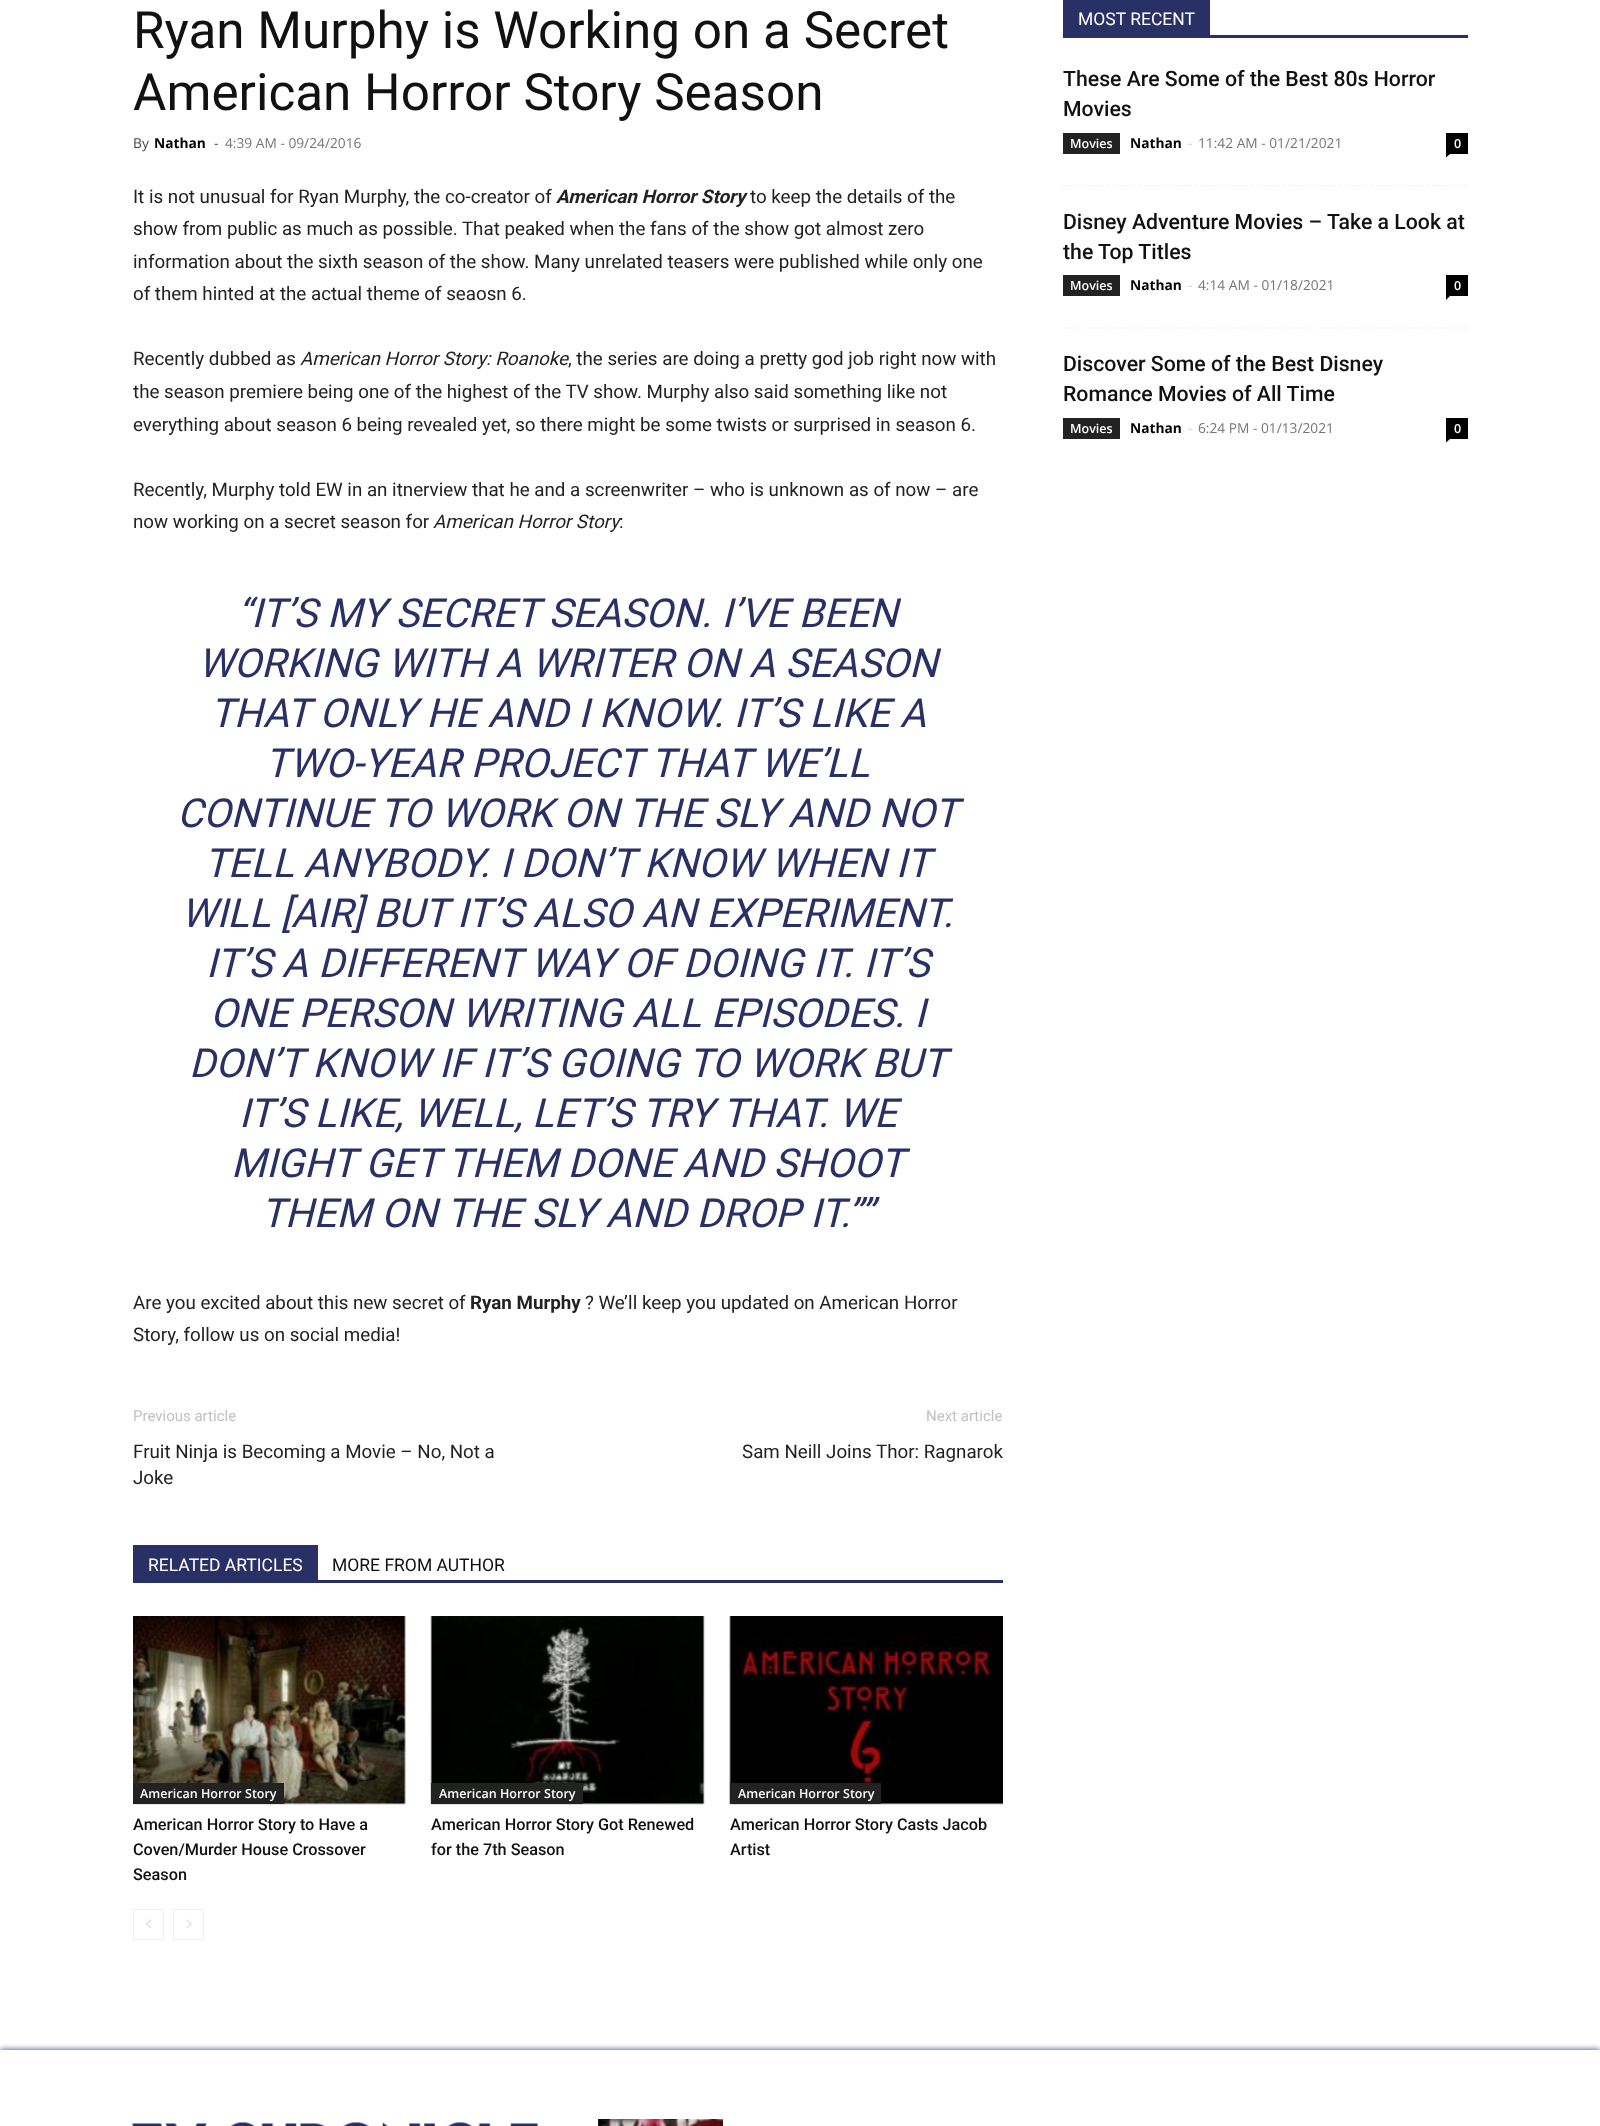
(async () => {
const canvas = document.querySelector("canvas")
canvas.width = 1600
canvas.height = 2126
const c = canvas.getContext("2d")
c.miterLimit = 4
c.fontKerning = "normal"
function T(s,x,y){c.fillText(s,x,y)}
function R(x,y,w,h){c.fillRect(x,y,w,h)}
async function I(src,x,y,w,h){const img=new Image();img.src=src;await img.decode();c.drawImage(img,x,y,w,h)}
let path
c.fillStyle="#fff"
R(0,0,1600,2126)
c.font="51.25px Roboto"
c.fillStyle="#111"
T("Ryan Murphy is Working on a Secret",133,48)
T("American Horror Story Season",133,110)
c.font="13.75px Open Sans"
c.fillStyle="#444"
T("By",133,148)
c.font="bold 13.75px Open Sans"
c.fillStyle="#000"
T("Nathan",154,148)
c.font="13.75px Open Sans"
c.fillStyle="#444"
T("-",214,148)
c.fillStyle="#767676"
T("4:39 AM - 09/24/2016",225,148)
c.font="18.75px Roboto"
c.fillStyle="#222"
T("It is not unusual for Ryan Murphy, the co-creator of",133,203)
c.font="italic bold 18.75px Roboto"
T("American Horror Story",556,203)
c.font="18.75px Roboto"
T("to keep the details of the",750,203)
T("show from public as much as possible. That peaked when the fans of the show got almost zero",133,235)
T("information about the sixth season of the show. Many unrelated teasers were published while only one",133,268)
T("of them hinted at the actual theme of seaosn 6.",133,300)
T("Recently dubbed as",133,365)
c.font="italic 18.75px Roboto"
T("American Horror Story: Roanoke",300,365)
c.font="18.75px Roboto"
T(", the series are doing a pretty god job right now with",568,365)
T("the season premiere being one of the highest of the TV show. Murphy also said something like not",133,398)
T("everything about season 6 being revealed yet, so there might be some twists or surprised in season 6.",133,431)
T("Recently, Murphy told EW in an itnerview that he and a screenwriter – who is unknown as of now – are",133,496)
T("now working on a secret season for",133,528)
c.font="italic 18.75px Roboto"
T("American Horror Story",433,528)
c.font="18.75px Roboto"
T(":",619,528)
c.font="italic 40px Roboto"
c.fillStyle="#283066"
T("“IT’S MY SECRET SEASON. I’VE BEEN",237,627)
T("WORKING WITH A WRITER ON A SEASON",198,677)
T("THAT ONLY HE AND I KNOW. IT’S LIKE A",210,727)
T("TWO-YEAR PROJECT THAT WE’LL",265,777)
T("CONTINUE TO WORK ON THE SLY AND NOT",177,827)
T("TELL ANYBODY. I DON’T KNOW WHEN IT",204,877)
T("WILL [AIR] BUT IT’S ALSO AN EXPERIMENT.",181,927)
T("IT’S A DIFFERENT WAY OF DOING IT. IT’S",206,977)
T("ONE PERSON WRITING ALL EPISODES. I",210,1027)
T("DON’T KNOW IF IT’S GOING TO WORK BUT",189,1077)
T("IT’S LIKE, WELL, LET’S TRY THAT. WE",239,1127)
T("MIGHT GET THEM DONE AND SHOOT",231,1177)
T("THEM ON THE SLY AND DROP IT.””",261,1227)
c.font="18.75px Roboto"
c.fillStyle="#222"
T("Are you excited about this new secret of",133,1309)
c.font="bold 18.75px Roboto"
T("Ryan Murphy",470,1309)
c.font="18.75px Roboto"
T("? We’ll keep you updated on American Horror",585,1309)
T("Story, follow us on social media!",133,1341)
c.font="15px Roboto"
c.fillStyle="#c1c1c1"
T("Previous article",133,1421)
c.font="18.75px Roboto"
c.fillStyle="#222"
T("Fruit Ninja is Becoming a Movie – No, Not a",133,1458)
T("Joke",133,1484)
c.font="15px Roboto"
c.fillStyle="#c1c1c1"
T("Next article",926,1421)
c.font="18.75px Roboto"
c.fillStyle="#222"
T("Sam Neill Joins Thor: Ragnarok",742,1458)
c.fillStyle="#283066"
R(133,1580,870,3)
R(133,1545,185,35)
c.font="17.5px Roboto"
c.fillStyle="#fff"
T("RELATED ARTICLES",148,1571)
c.fillStyle="#111"
T("MORE FROM AUTHOR",332,1571)
await I("1.png",133,1616,273,189)
c.fillStyle="#222"
R(133,1783,151,21)
c.font="600 12.5px Open Sans"
c.fillStyle="#fff"
T("American Horror Story",140,1798)
c.font="500 16.25px Roboto"
c.fillStyle="#111"
T("American Horror Story to Have a",133,1830)
T("Coven/Murder House Crossover",133,1855)
T("Season",133,1880)
await I("2.png",430,1616,275,189)
c.fillStyle="#222"
R(431,1783,152,21)
c.font="600 12.5px Open Sans"
c.fillStyle="#fff"
T("American Horror Story",439,1798)
c.font="500 16.25px Roboto"
c.fillStyle="#111"
T("American Horror Story Got Renewed",431,1830)
T("for the 7th Season",431,1855)
await I("3.png",729,1616,274,189)
c.fillStyle="#222"
R(730,1783,151,21)
c.font="600 12.5px Open Sans"
c.fillStyle="#fff"
T("American Horror Story",738,1798)
c.font="500 16.25px Roboto"
c.fillStyle="#111"
T("American Horror Story Casts Jacob",730,1830)
T("Artist",730,1855)
c.strokeStyle="#eee"
c.strokeRect(133.5,1909.5,30,30)
await I("4.png",146,1919,5,9)
c.strokeRect(173.5,1909.5,30,30)
await I("5.png",186,1919,6,9)
c.fillStyle="#283066"
R(1063,35,405,3)
R(1063,0,147,35)
c.font="17.5px Roboto"
c.fillStyle="#fff"
T("MOST RECENT",1078,25)
path = new Path2D("M1062.5 185.5h405")
c.strokeStyle="#f2f2f2"
c.lineWidth=1.2
c.setLineDash([3.75,2.52])
c.stroke(path)
c.font="500 21.25px Roboto"
c.fillStyle="#111"
T("These Are Some of the Best 80s Horror",1063,86)
T("Movies",1063,116)
c.fillStyle="#222"
R(1063,133,57,21)
c.font="600 12.5px Open Sans"
c.fillStyle="#fff"
T("Movies",1070,148)
c.font="bold 13.75px Open Sans"
c.fillStyle="#000"
T("Nathan",1130,148)
c.font="13.75px Open Sans"
c.fillStyle="#ccc"
T("-",1188,148)
c.fillStyle="#767676"
T("11:42 AM - 01/21/2021",1198,148)
c.fillStyle="#000"
R(1446,133,22,21)
c.font="600 12.5px Open Sans"
c.fillStyle="#fff"
T("0",1454,148)
c.fillStyle="#000"
path = new Path2D("M1446 154h4l-4 3.5z")
c.fill(path)
path = new Path2D("M1062.5 328h405")
c.stroke(path)
c.font="500 21.25px Roboto"
c.fillStyle="#111"
T("Disney Adventure Movies – Take a Look at",1063,229)
T("the Top Titles",1063,259)
c.fillStyle="#222"
R(1063,275,57,21)
c.font="600 12.5px Open Sans"
c.fillStyle="#fff"
T("Movies",1070,290)
c.font="bold 13.75px Open Sans"
c.fillStyle="#000"
T("Nathan",1130,290)
c.font="13.75px Open Sans"
c.fillStyle="#ccc"
T("-",1188,290)
c.fillStyle="#767676"
T("4:14 AM - 01/18/2021",1198,290)
c.fillStyle="#000"
R(1446,275,22,21)
c.font="600 12.5px Open Sans"
c.fillStyle="#fff"
T("0",1454,290)
c.fillStyle="#000"
path = new Path2D("M1446 296h4l-4 4z")
c.fill(path)
c.font="500 21.25px Roboto"
c.fillStyle="#111"
T("Discover Some of the Best Disney",1063,371)
T("Romance Movies of All Time",1063,401)
c.fillStyle="#222"
R(1063,418,57,21)
c.font="600 12.5px Open Sans"
c.fillStyle="#fff"
T("Movies",1070,433)
c.font="bold 13.75px Open Sans"
c.fillStyle="#000"
T("Nathan",1130,433)
c.font="13.75px Open Sans"
c.fillStyle="#ccc"
T("-",1188,433)
c.fillStyle="#767676"
T("6:24 PM - 01/13/2021",1198,433)
c.fillStyle="#000"
R(1446,418,22,21)
c.font="600 12.5px Open Sans"
c.fillStyle="#fff"
T("0",1454,433)
c.fillStyle="#000"
path = new Path2D("M1446 439h4l-4 3.5z")
c.fill(path)
c.save()
c.beginPath()
c.rect(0,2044,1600,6)
c.clip()
c.fillStyle="#283a76"
c.filter="blur(3px)"
c.beginPath()
c.rect(0,2050,1600,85)
c.fill()
c.filter="none"
c.restore()
await I("6.png",132,2122,406,4)
await I("7.png",598,2119,125,7)
})()
